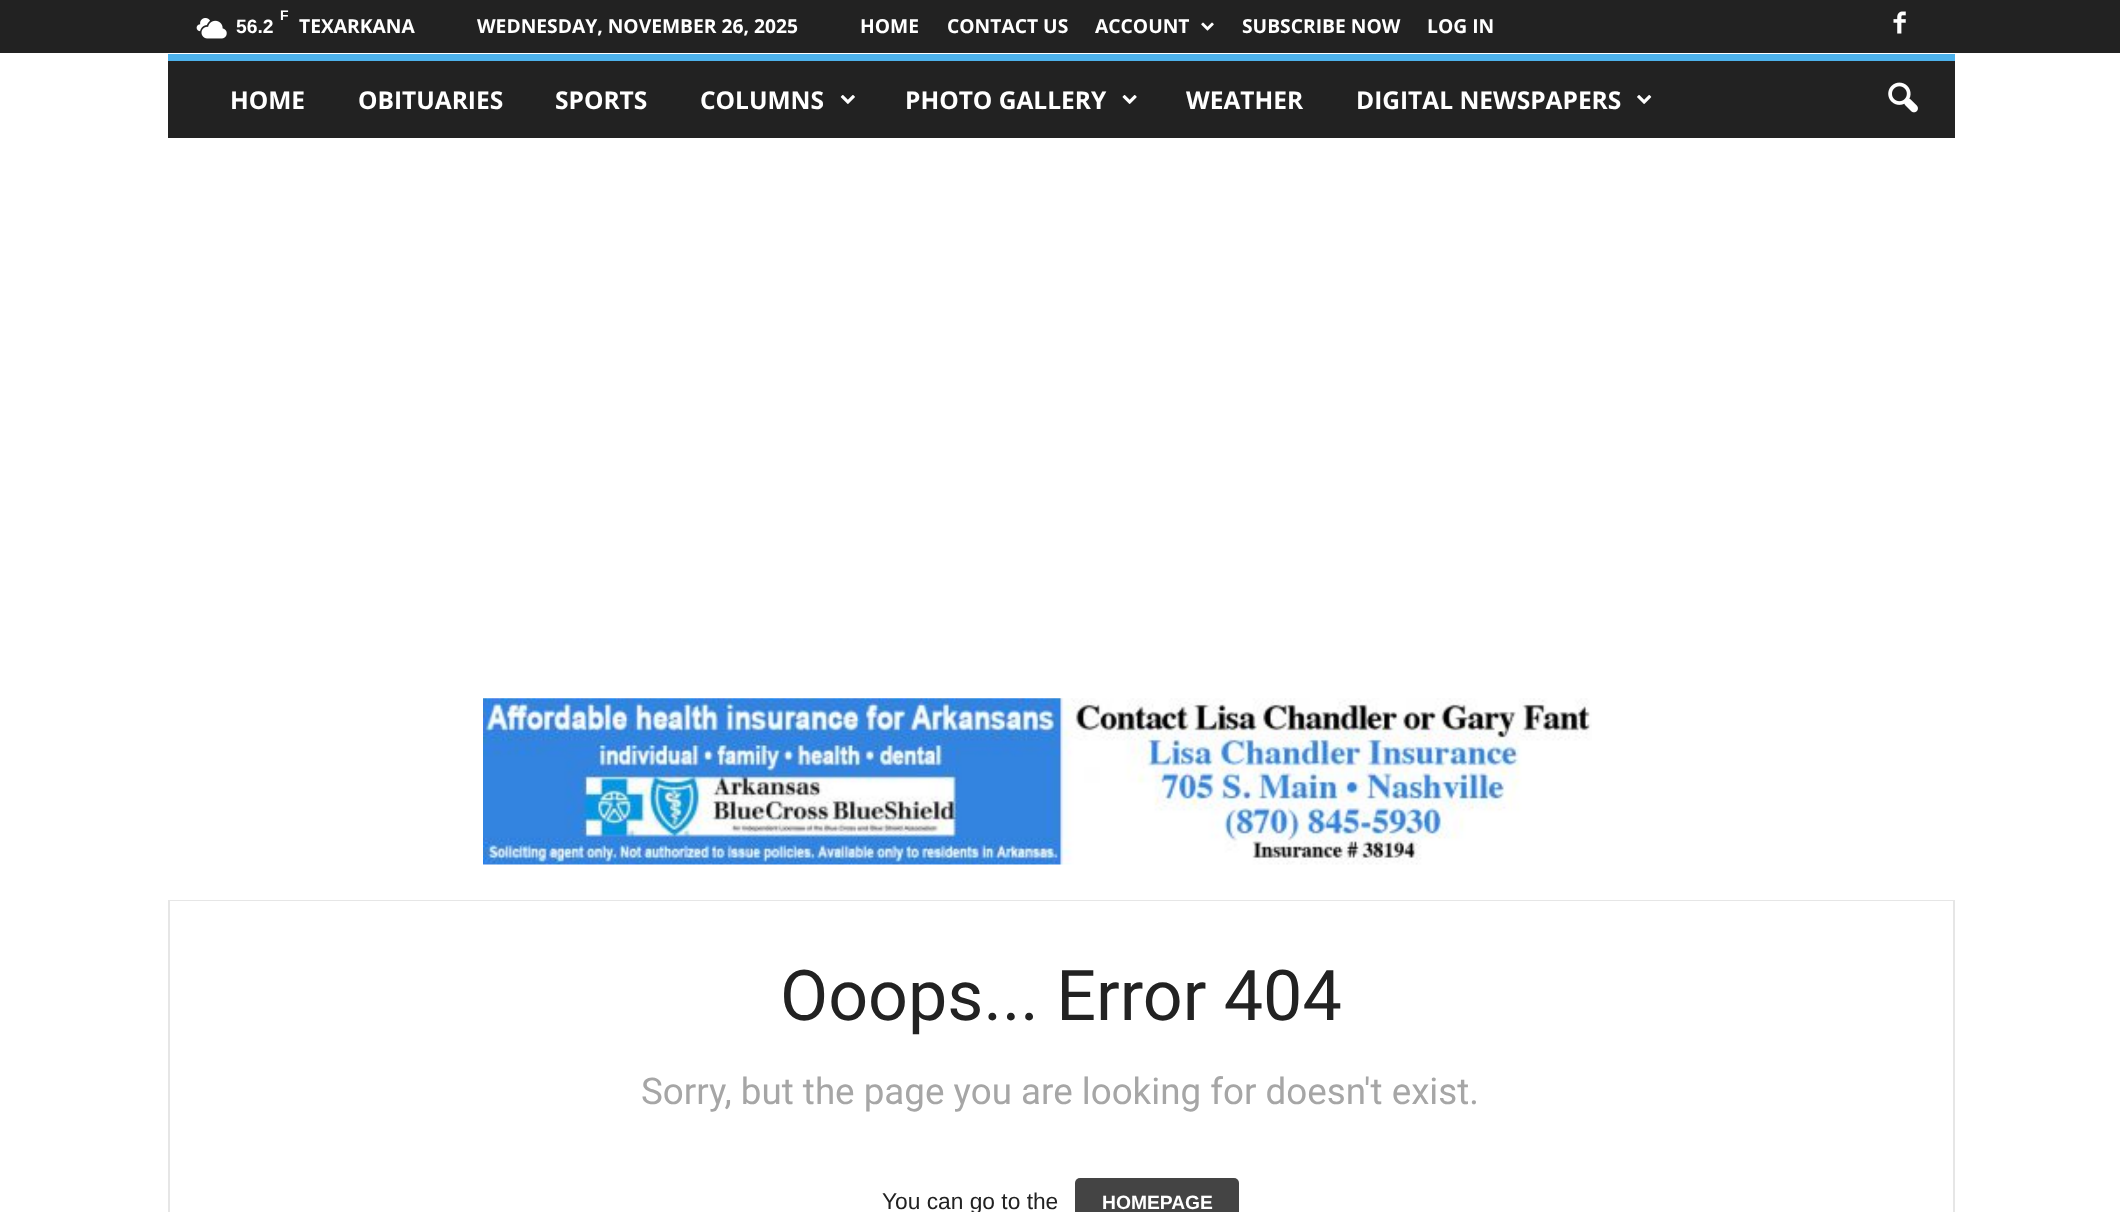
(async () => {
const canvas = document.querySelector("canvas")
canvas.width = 2120
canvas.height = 1212
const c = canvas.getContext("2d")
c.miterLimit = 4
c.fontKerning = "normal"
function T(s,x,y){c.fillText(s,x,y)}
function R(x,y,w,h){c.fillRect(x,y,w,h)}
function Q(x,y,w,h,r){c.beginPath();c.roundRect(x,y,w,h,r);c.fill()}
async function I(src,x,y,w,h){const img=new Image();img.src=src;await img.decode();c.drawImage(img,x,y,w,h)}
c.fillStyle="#fff"
R(0,0,2120,1212)
c.fillStyle="#222"
R(0,0,2120,53)
await I("1.png",196,18,31,21)
c.font="bold 14px Liberation Sans"
c.fillStyle="#fff"
T("F",280,20)
c.font="bold 19.25px Liberation Sans"
T("56.2",236,33)
c.font="bold 19.25px Open Sans"
T("TEXARKANA",299,33)
T("WEDNESDAY, NOVEMBER 26, 2025",477,33)
T("HOME",860,33)
T("CONTACT US",947,33)
T("ACCOUNT",1095,33)
await I("2.png",1201,22,13,9)
T("SUBSCRIBE NOW",1242,33)
T("LOG IN",1427,33)
await I("3.png",1893,11,13,23)
c.fillStyle="#222"
R(168,61,1787,77)
c.fillStyle="#4db2ec"
R(168,54,1787,7)
c.font="bold 24.5px Open Sans"
c.fillStyle="#fff"
T("HOME",230,109)
T("OBITUARIES",358,109)
T("SPORTS",555,109)
T("COLUMNS",700,109)
await I("4.png",840,95,15,9)
T("PHOTO GALLERY",905,109)
await I("5.png",1122,95,15,9)
T("WEATHER",1186,109)
T("DIGITAL NEWSPAPERS",1356,109)
await I("6.png",1637,95,15,9)
await I("7.png",1888,82,30,31)
c.fillStyle="#e6e6e6"
R(168,900,1787,1)
await I("8.png",483,698,1109,167)
R(168,901,2,311)
c.font="70px Roboto"
c.fillStyle="#222"
T("Ooops... Error 404",780,1020)
c.font="36.75px Roboto"
c.fillStyle="#a6a6a6"
T("Sorry, but the page you are looking for doesn't exist.",641,1104)
c.font="22.75px Liberation Sans"
c.fillStyle="#222"
T("You can go to the",882,1209)
c.fillStyle="#444"
Q(1075,1178,164,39,5)
c.font="bold 19.25px Liberation Sans"
c.fillStyle="#fff"
T("HOMEPAGE",1102,1209)
c.fillStyle="#e6e6e6"
R(1953,901,2,311)
})()
